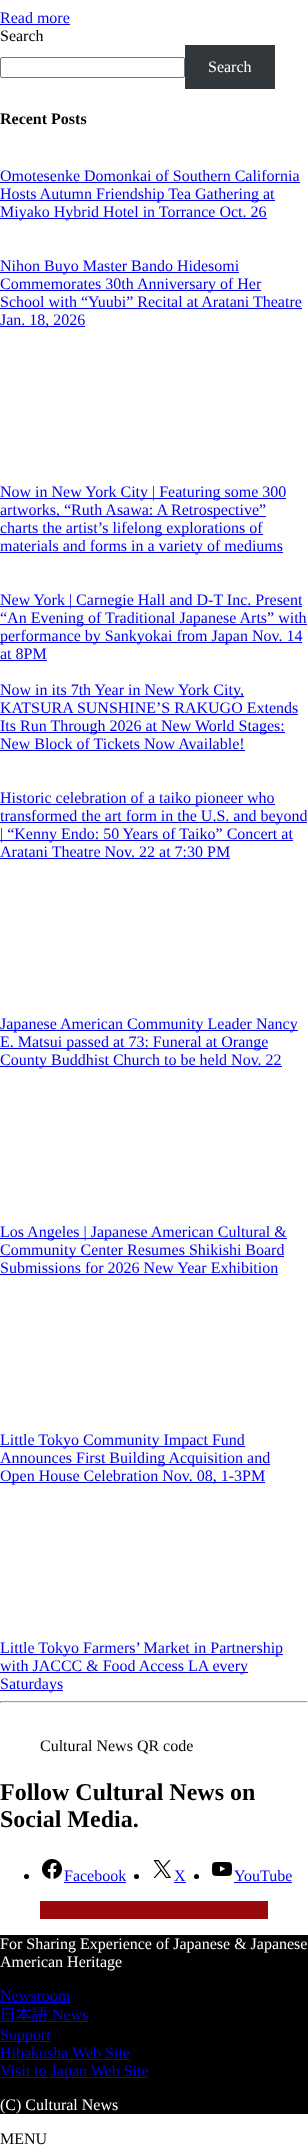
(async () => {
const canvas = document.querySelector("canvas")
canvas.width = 308
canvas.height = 2156
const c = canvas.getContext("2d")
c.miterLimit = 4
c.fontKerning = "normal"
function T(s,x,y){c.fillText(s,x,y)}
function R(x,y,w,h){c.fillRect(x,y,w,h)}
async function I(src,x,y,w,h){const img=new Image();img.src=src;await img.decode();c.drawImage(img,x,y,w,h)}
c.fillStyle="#fff"
R(0,0,308,2156)
c.font="16px Liberation Serif"
c.fillStyle="#00e"
T("Read more",0,23)
R(0,24,70,1)
c.fillStyle="#000"
T("Search",0,41)
c.beginPath()
c.roundRect(.5,57.5,184,20,1.5)
c.strokeStyle="#767676"
c.stroke()
c.fillStyle="#32373c"
R(185,45,90,44)
c.fillStyle="#fff"
T("Search",208,72)
c.font="bold 16px Liberation Serif"
c.fillStyle="#000"
T("Recent Posts",0,124)
c.font="16px Liberation Serif"
c.fillStyle="#00e"
T("Omotesenke Domonkai of Southern California",0,181)
R(0,182,300,1)
R(0,200,275,1)
T("Hosts Autumn Friendship Tea Gathering at",0,199)
R(0,218,267,1)
T("Miyako Hybrid Hotel in Torrance Oct. 26",0,217)
R(0,272,239,1)
T("Nihon Buyo Master Bando Hidesomi",0,271)
R(0,290,261,1)
T("Commemorates 30th Anniversary of Her",0,289)
T("School with “Yuubi” Recital at Aratani Theatre",0,307)
R(0,308,302,1)
R(0,326,85,1)
T("Jan. 18, 2026",0,325)
R(0,498,286,1)
T("Now in New York City | Featuring some 300",0,497)
R(0,516,266,1)
T("artworks, “Ruth Asawa: A Retrospective”",0,515)
R(0,534,263,1)
T("charts the artist’s lifelong explorations of",0,533)
R(0,552,283,1)
T("materials and forms in a variety of mediums",0,551)
R(0,606,302,1)
T("New York | Carnegie Hall and D-T Inc. Present",0,605)
R(0,624,307,1)
T("“An Evening of Traditional Japanese Arts” with",0,623)
R(0,642,302,1)
T("performance by Sankyokai from Japan Nov. 14",0,641)
T("at 8PM",0,659)
R(0,660,47,1)
R(0,696,244,1)
T("Now in its 7th Year in New York City,",0,695)
T("KATSURA SUNSHINE’S RAKUGO Extends",0,713)
R(0,714,298,1)
R(0,732,285,1)
T("Its Run Through 2026 at New World Stages:",0,731)
T("New Block of Tickets Now Available!",0,749)
R(0,750,245,1)
R(0,804,275,1)
T("Historic celebration of a taiko pioneer who",0,803)
R(0,822,307,1)
T("transformed the art form in the U.S. and beyond",0,821)
R(0,840,293,1)
T("| “Kenny Endo: 50 Years of Taiko” Concert at",0,839)
T("Aratani Theatre Nov. 22 at 7:30 PM",0,857)
R(0,858,230,1)
R(0,1030,298,1)
T("Japanese American Community Leader Nancy",0,1029)
R(0,1048,268,1)
T("E. Matsui passed at 73: Funeral at Orange",0,1047)
R(0,1066,282,1)
T("County Buddhist Church to be held Nov. 22",0,1065)
R(0,1238,287,1)
T("Los Angeles | Japanese American Cultural &",0,1237)
R(0,1256,284,1)
T("Community Center Resumes Shikishi Board",0,1255)
T("Submissions for 2026 New Year Exhibition",0,1273)
R(0,1274,278,1)
R(0,1446,245,1)
T("Little Tokyo Community Impact Fund",0,1445)
R(0,1464,270,1)
T("Announces First Building Acquisition and",0,1463)
R(0,1482,265,1)
T("Open House Celebration Nov. 08, 1-3PM",0,1481)
R(0,1654,283,1)
T("Little Tokyo Farmers’ Market in Partnership",0,1653)
R(0,1672,248,1)
T("with JACCC & Food Access LA every",0,1671)
R(0,1690,63,1)
T("Saturdays",0,1689)
c.fillStyle="#9f9f9f"
R(0,1701,308,1)
c.fillStyle="#eee"
R(307,1701,1,2)
R(0,1702,308,1)
c.fillStyle="#9f9f9f"
R(0,1701,1,2)
c.fillStyle="#000"
T("Cultural News QR code",40,1751)
c.font="bold 24px Liberation Serif"
T("Follow Cultural News on",0,1800)
T("Social Media.",0,1827)
c.beginPath()
c.arc(26.5,1876.5,2.5,0,7)
c.fill()
await I("1.png",42,1859,20,20)
c.font="16px Liberation Serif"
c.fillStyle="#00e"
T("Facebook",64,1881)
R(64,1882,62,1)
c.fillStyle="#000"
c.beginPath()
c.arc(136.5,1876.5,2.5,0,7)
c.fill()
await I("2.png",153,1860,18,18)
c.fillStyle="#00e"
T("X",174,1881)
R(174,1882,12,1)
c.fillStyle="#000"
c.beginPath()
c.arc(196.5,1876.5,2.5,0,7)
c.fill()
await I("3.png",212,1862,20,14)
c.fillStyle="#00e"
T("YouTube",234,1881)
R(234,1882,58,1)
c.fillStyle="#9a090c"
R(40,1901,228,18)
c.fillStyle="#000"
R(0,1935,308,179)
c.fillStyle="#fff"
T("For Sharing Experience of Japanese & Japanese",0,1949)
T("American Heritage",0,1967)
c.fillStyle="#00e"
T("Newsroom",0,2001)
R(0,2002,70,1)
R(0,2021,88,1)
c.font="500 16px WenQuanYi Zen Hei"
T("日本語",0,2020)
c.font="16px Liberation Serif"
T("News",52,2020)
R(0,2041,51,1)
T("Support",0,2040)
T("Hibakusha Web Site",0,2058)
R(0,2059,130,1)
R(0,2077,149,1)
T("Visit to Japan Web Site",0,2076)
c.fillStyle="#fff"
T("(C) Cultural News",0,2110)
c.fillStyle="#000"
T("MENU",0,2144)
})()
